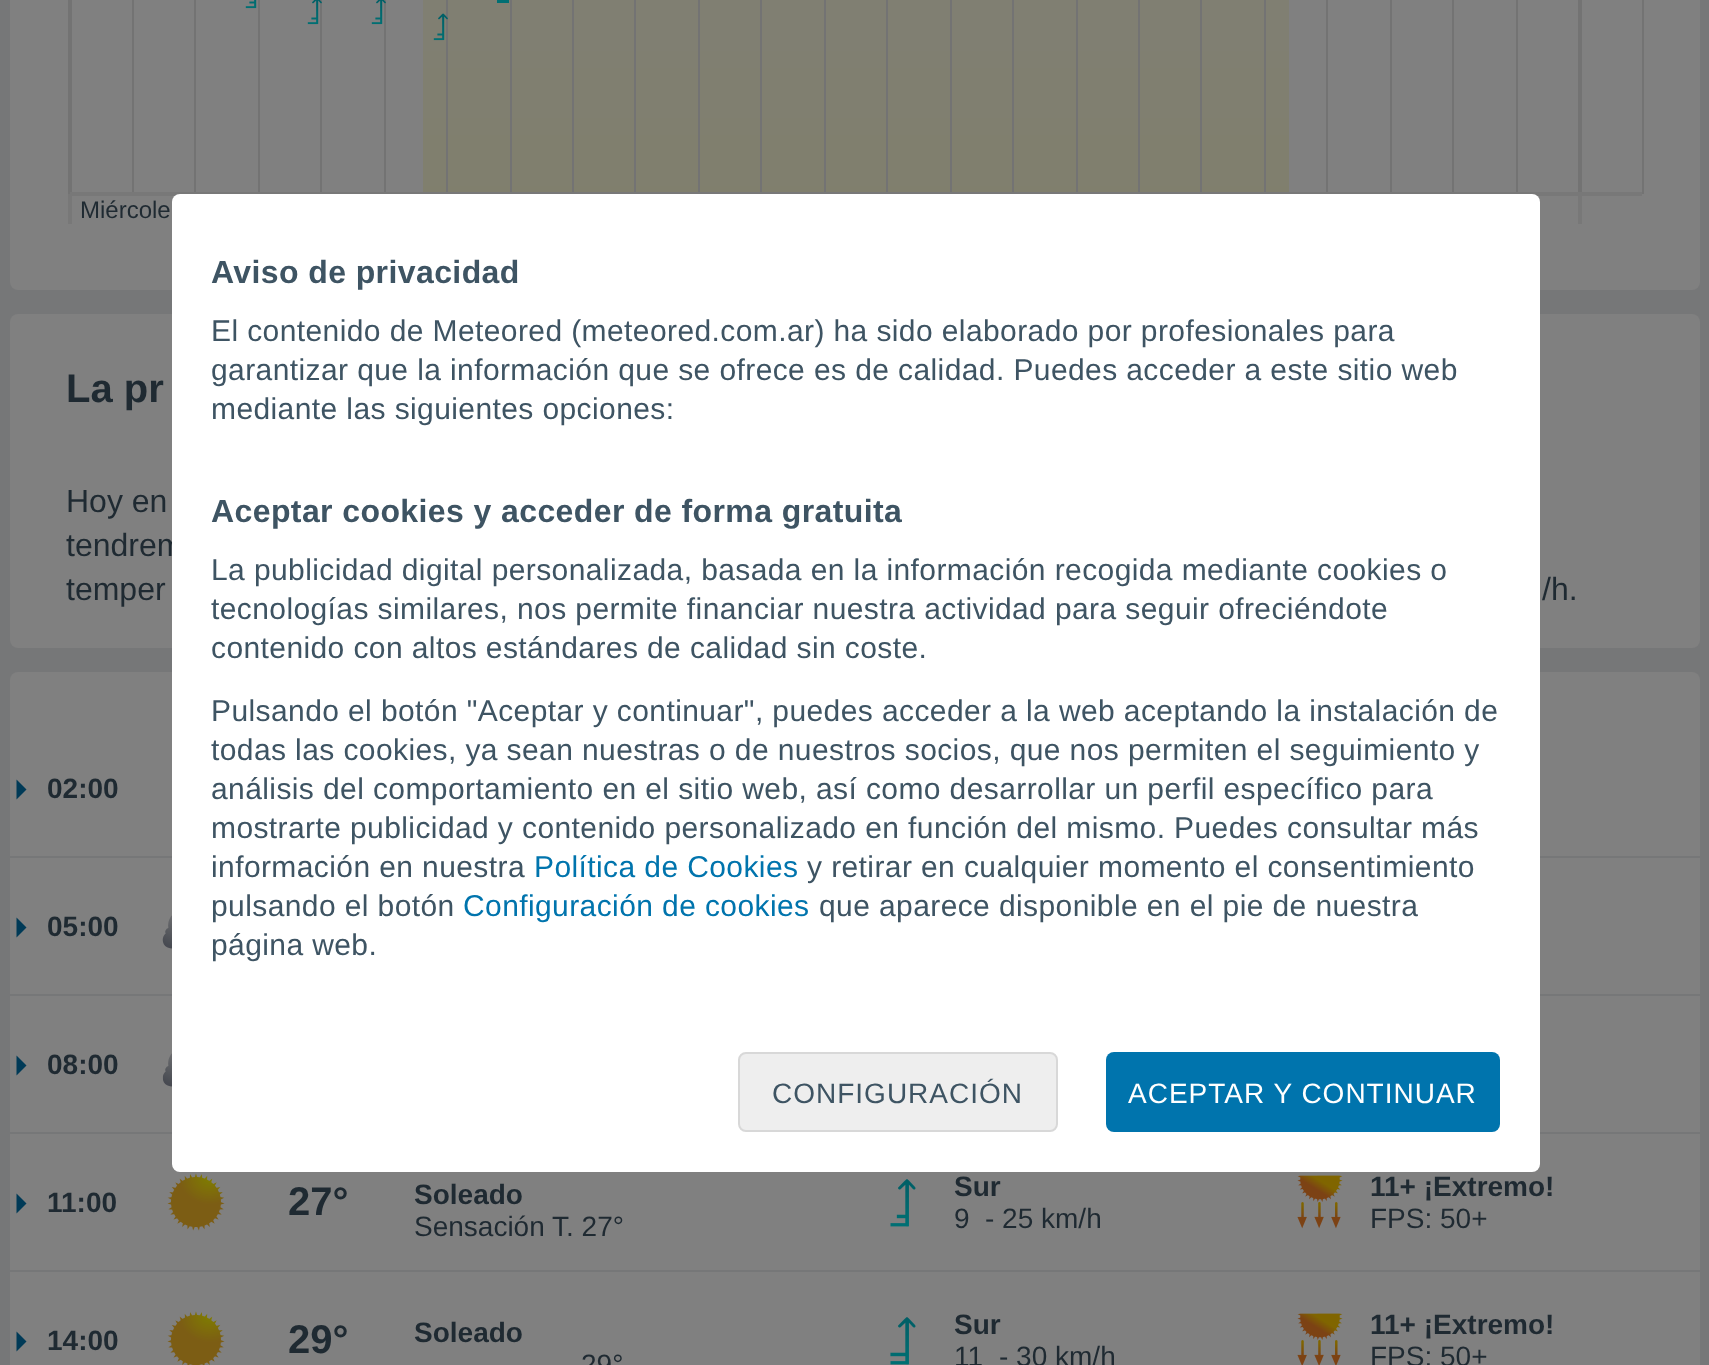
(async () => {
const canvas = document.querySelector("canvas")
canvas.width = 1709
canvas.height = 1365
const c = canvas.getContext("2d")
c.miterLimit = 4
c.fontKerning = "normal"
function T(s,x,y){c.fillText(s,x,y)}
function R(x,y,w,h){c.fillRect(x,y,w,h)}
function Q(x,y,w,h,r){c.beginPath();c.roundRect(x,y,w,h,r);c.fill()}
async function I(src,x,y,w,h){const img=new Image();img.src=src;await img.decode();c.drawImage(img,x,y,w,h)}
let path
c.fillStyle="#767778"
R(0,0,1709,1365)
c.fillStyle="#808080"
Q(10,-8,1690,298,8)
await I("1.png",68,0,1576,224)
await I("2.png",245,0,12,9)
await I("3.png",307,0,15,25)
await I("3.png",371,0,15,25)
c.fillStyle="#006f73"
R(497,0,12,3)
await I("4.png",433,13,15,28)
c.font="24px Liberation Sans"
c.fillStyle="#1f2a32"
T("Miércole",80,218)
c.fillStyle="#808080"
Q(10,314,1690,334,8)
c.font="bold 40px Liberation Sans"
c.fillStyle="#1f2a32"
T("La pr",66,402)
c.font="32px Liberation Sans"
T("Hoy en",66,512)
T("tendrem",66,556)
T("temper",66,600)
T("/h.",1542,600)
c.fillStyle="#808080"
Q(10,672,1690,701,8)
c.fillStyle="#767778"
R(10,856,1692,2)
c.fillStyle="#003a57"
path = new Path2D("M16.5 799.5l10-10l-10-10v20")
c.fill(path)
c.font="bold 28px Liberation Sans"
c.fillStyle="#1f2a32"
T("02:00",47,798)
c.fillStyle="#767778"
R(10,994,1692,2)
c.fillStyle="#003a57"
path = new Path2D("M16.5 937.5l10-10l-10-10v20")
c.fill(path)
c.fillStyle="#1f2a32"
T("05:00",47,936)
await I("5.png",162,915,10,34)
c.fillStyle="#767778"
R(10,1132,1692,2)
c.fillStyle="#003a57"
path = new Path2D("M16.5 1075.5l10-10l-10-10v20")
c.fill(path)
c.fillStyle="#1f2a32"
T("08:00",47,1074)
await I("6.png",162,1053,10,34)
c.fillStyle="#767778"
R(10,1270,1692,2)
c.fillStyle="#003a57"
path = new Path2D("M16.5 1213.5l10-10l-10-10v20")
c.fill(path)
c.fillStyle="#1f2a32"
T("11:00",47,1212)
await I("7.png",167,1173,58,58)
c.font="bold 40px Liberation Sans"
T("27°",288,1215)
c.font="bold 28px Liberation Sans"
T("Soleado",414,1204)
c.font="28px Liberation Sans"
T("Sensación T. 27°",414,1236)
await I("8.png",890,1179,26,48)
c.font="bold 28px Liberation Sans"
T("Sur",954,1196)
c.font="28px Liberation Sans"
T("9",954,1228)
T("- 25 km/h",985,1228)
await I("9.png",1297,1175,46,54)
c.font="bold 28px Liberation Sans"
T("11+ ¡Extremo!",1370,1196)
c.font="28px Liberation Sans"
T("FPS: 50+",1370,1228)
c.fillStyle="#003a57"
path = new Path2D("M16.5 1351.5l10-10l-10-10v20")
c.fill(path)
c.font="bold 28px Liberation Sans"
c.fillStyle="#1f2a32"
T("14:00",47,1350)
await I("10.png",167,1311,58,54)
c.font="bold 40px Liberation Sans"
T("29°",288,1353)
c.font="bold 28px Liberation Sans"
T("Soleado",414,1342)
c.font="28px Liberation Sans"
T("29°",581,1374)
await I("11.png",890,1317,26,48)
c.font="bold 28px Liberation Sans"
T("Sur",954,1334)
c.font="28px Liberation Sans"
T("11",954,1366)
T("- 30 km/h",999,1366)
await I("12.png",1297,1313,46,52)
c.font="bold 28px Liberation Sans"
T("11+ ¡Extremo!",1370,1334)
c.font="28px Liberation Sans"
T("FPS: 50+",1370,1366)
c.fillStyle="#fff"
Q(172,194,1368,978,8)
c.letterSpacing="0.4px"
c.font="bold 32px Liberation Sans"
c.fillStyle="#3e5463"
T("Aviso de privacidad",211,283)
c.font="30px Liberation Sans"
T("El contenido de Meteored (meteored.com.ar) ha sido elaborado por profesionales para",211,341)
T("garantizar que la información que se ofrece es de calidad. Puedes acceder a este sitio web",211,380)
T("mediante las siguientes opciones:",211,419)
c.font="bold 32px Liberation Sans"
T("Aceptar cookies y acceder de forma gratuita",211,522)
c.font="30px Liberation Sans"
T("La publicidad digital personalizada, basada en la información recogida mediante cookies o",211,580)
T("tecnologías similares, nos permite financiar nuestra actividad para seguir ofreciéndote",211,619)
T("contenido con altos estándares de calidad sin coste.",211,658)
T("Pulsando el botón \"Aceptar y continuar\", puedes acceder a la web aceptando la instalación de",211,721)
T("todas las cookies, ya sean nuestras o de nuestros socios, que nos permiten el seguimiento y",211,760)
T("análisis del comportamiento en el sitio web, así como desarrollar un perfil específico para",211,799)
T("mostrarte publicidad y contenido personalizado en función del mismo. Puedes consultar más",211,838)
T("información en nuestra",211,877)
c.fillStyle="#0074ad"
T("Política de Cookies",534,877)
c.fillStyle="#3e5463"
T("y retirar en cualquier momento el consentimiento",807,877)
T("pulsando el botón",211,916)
c.fillStyle="#0074ad"
T("Configuración de cookies",463,916)
c.fillStyle="#3e5463"
T("que aparece disponible en el pie de nuestra",819,916)
T("página web.",211,955)
c.fillStyle="#eee"
c.beginPath()
c.roundRect(739,1053,318,78,7)
c.fill()
c.strokeStyle="#d8d8d8"
c.lineWidth=2
c.stroke()
c.letterSpacing="1px"
c.font="28px Liberation Sans"
c.fillStyle="#3e5463"
T("CONFIGURACIÓN",772,1103)
c.fillStyle="#0074ad"
Q(1106,1052,394,80,8)
c.fillStyle="#fff"
T("ACEPTAR Y CONTINUAR",1128,1103)
})()
